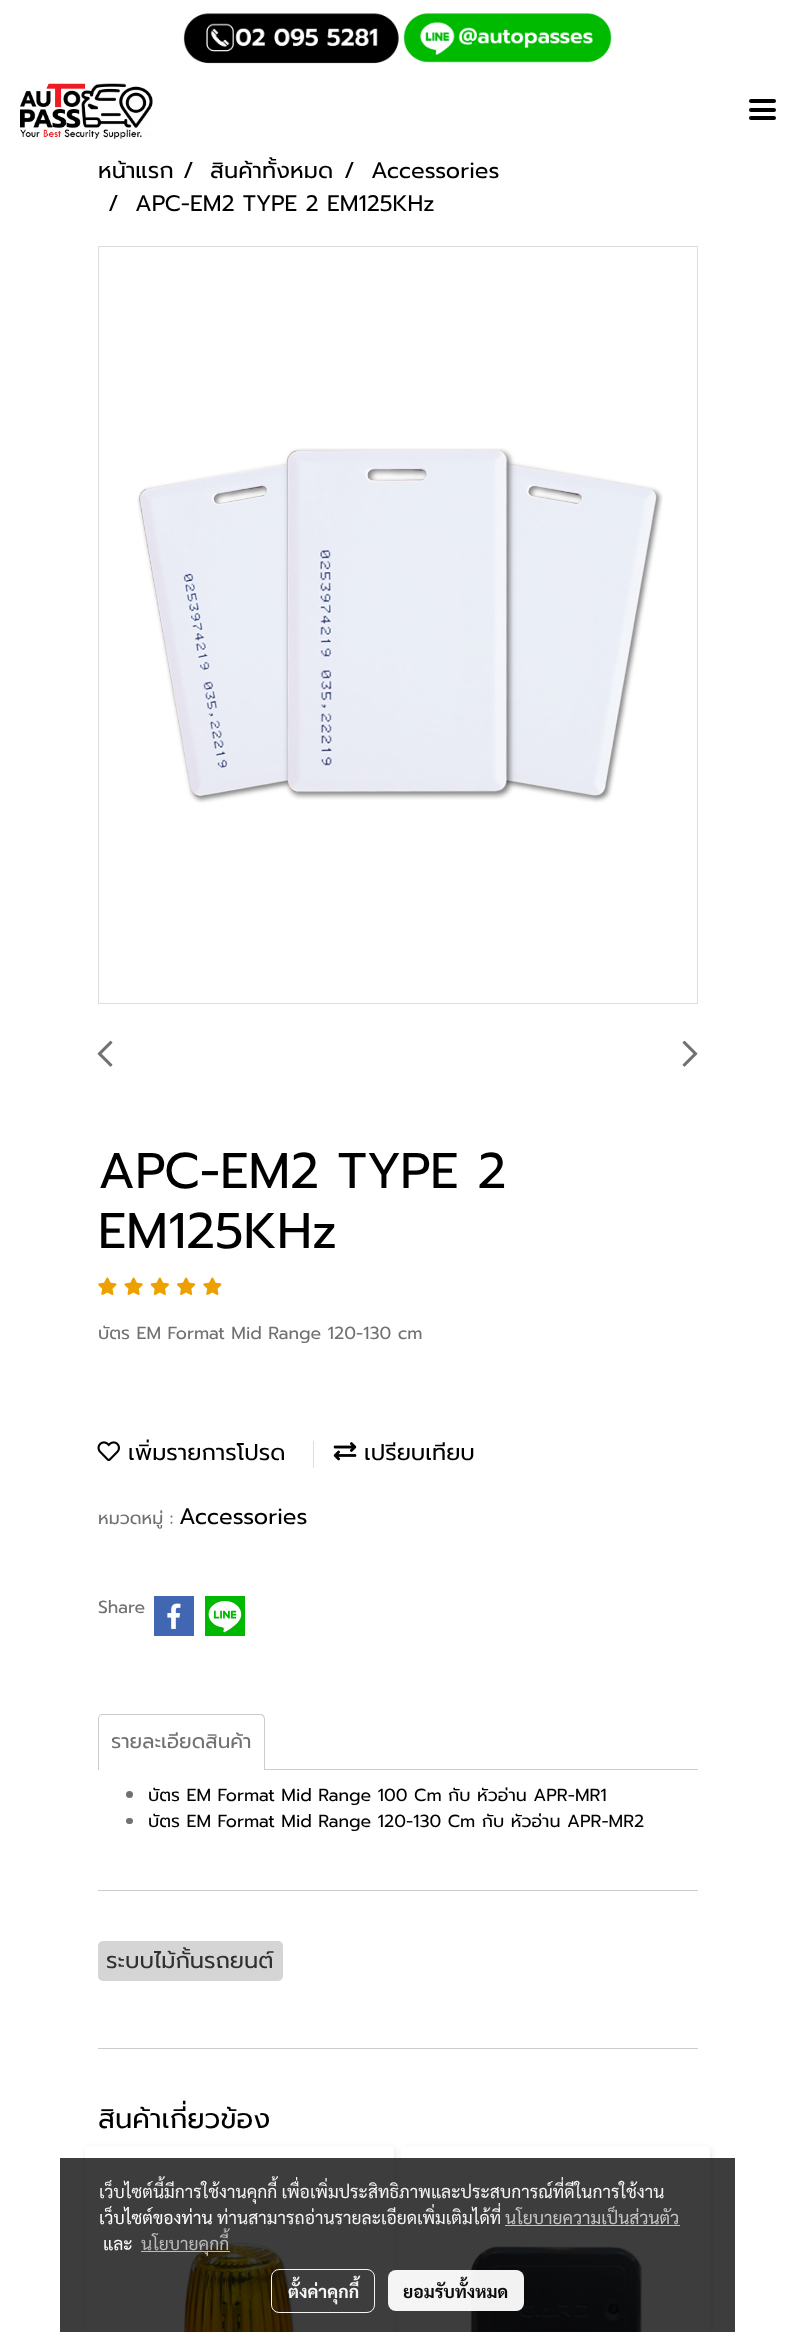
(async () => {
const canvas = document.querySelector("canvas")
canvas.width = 795
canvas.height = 2332
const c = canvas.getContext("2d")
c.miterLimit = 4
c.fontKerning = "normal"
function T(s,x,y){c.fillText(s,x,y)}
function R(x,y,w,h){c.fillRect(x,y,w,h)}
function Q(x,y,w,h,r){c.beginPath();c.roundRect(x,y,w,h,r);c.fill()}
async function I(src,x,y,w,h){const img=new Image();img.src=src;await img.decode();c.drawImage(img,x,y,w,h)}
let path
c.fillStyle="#fff"
R(0,0,795,2332)
await I("1.png",183,13,216,51)
await I("2.png",403,13,209,50)
await I("3.png",20,83,133,56)
c.fillStyle="#000"
Q(749,108,27,4,2)
Q(749,99,27,4,2)
Q(749,116,27,4,2)
c.font="22.5px Prompt"
T("หน้าแรก",98,178)
T("/",183,178)
T("สินค้าทั้งหมด",210,178)
T("/",344,178)
T("Accessories",371,178)
T("/",108,211)
T("APC-EM2 TYPE 2 EM125KHz",135,211)
c.strokeStyle="#ddd"
c.strokeRect(98.5,246.5,599,757)
await I("4.png",137,448,526,355)
await I("5.png",97,1040,16,27)
await I("6.png",682,1040,16,27)
c.font="50px Prompt"
T("APC-EM2 TYPE 2",98,1188)
T("EM125KHz",98,1248)
await I("7.png",98,1277,19,18)
await I("8.png",124,1277,19,18)
await I("9.png",150,1277,19,18)
await I("10.png",177,1277,19,18)
await I("7.png",203,1277,19,18)
c.font="17.5px Prompt"
c.fillStyle="#717171"
T("บัตร EM Format Mid Range 120-130 cm",98,1339)
await I("11.png",97,1441,23,21)
c.font="22.5px Prompt"
c.fillStyle="#000"
T("เพิ่มรายการโปรด",128,1460)
c.fillStyle="#dedede"
R(313,1441,1,27)
await I("12.png",333,1442,24,19)
c.fillStyle="#000"
T("เปรียบเทียบ",364,1460)
c.font="17.5px Prompt"
c.fillStyle="#717171"
T("หมวดหมู่ :",98,1524)
c.font="22.5px Prompt"
c.fillStyle="#000"
T("Accessories",179,1524)
c.font="17.5px Prompt"
c.fillStyle="#717171"
T("Share",98,1613)
c.fillStyle="#4267b2"
R(154,1596,40,40)
await I("13.png",167,1603,14,26)
c.fillStyle="#00b800"
R(205,1596,40,40)
await I("14.png",208,1601,34,32)
c.fillStyle="#ccc"
path = new Path2D("M102 1714h158c3 0 5 2 5 5v51h-167v-51c0-3 2-5 4-5zm0 1h158c2 0 4 2 4 4v51h-165v-51c0-2 1-4 3-4z")
c.fill(path,"evenodd")
c.font="20px Prompt"
c.fillStyle="#717171"
T("รายละเอียดสินค้า",111,1748)
c.fillStyle="#ccc"
R(265,1769,433,1)
c.fillStyle="#717171"
c.beginPath()
c.arc(129.5,1794.5,3.5,0,7)
c.fill()
c.font="17.5px Prompt"
c.fillStyle="#000"
T("บัตร EM Format Mid Range 100 Cm กับ หัวอ่าน APR-MR1",148,1801)
c.fillStyle="#717171"
Q(126,1818,7,6,3)
c.fillStyle="#000"
T("บัตร EM Format Mid Range 120-130 Cm กับ หัวอ่าน APR-MR2",148,1827)
c.fillStyle="#ccc"
R(98,1890,600,1)
c.fillStyle="#d5d5d5"
Q(98,1941,185,40,5)
c.font="22.5px Prompt"
c.fillStyle="#303030"
T("ระบบไม้กั้นรถยนต์",106,1968)
c.fillStyle="#ccc"
R(98,2048,600,1)
c.font="27.5px Prompt"
c.fillStyle="#000"
T("สินค้าเกี่ยวข้อง",98,2128)
c.save()
path = new Path2D("M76 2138h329v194h-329zm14 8h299c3 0 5 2 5 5v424c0 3-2 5-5 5h-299c-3 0-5-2-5-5v-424c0-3 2-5 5-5z")
c.clip(path,"evenodd")
c.fillStyle="#0000001a"
c.filter="blur(3px)"
c.beginPath()
c.roundRect(86,2148,309,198,5)
c.fill()
c.filter="none"
c.restore()
await I("15.png",183,2242,112,90)
c.save()
path = new Path2D("M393 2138h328v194h-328zm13 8h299c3 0 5 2 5 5v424c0 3-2 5-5 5h-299c-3 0-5-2-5-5v-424c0-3 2-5 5-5z")
c.clip(path,"evenodd")
c.fillStyle="#0000001a"
c.filter="blur(3px)"
c.beginPath()
c.roundRect(403,2148,308,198,5)
c.fill()
c.filter="none"
c.restore()
await I("16.png",470,2246,173,86)
c.fillStyle="#000000c2"
R(60,2158,675,174)
c.font="17.5px Sarabun"
c.fillStyle="#f5f5f5"
T("เว็บไซต์นี้มีการใช้งานคุกกี้ เพื่อเพิ่มประสิทธิภาพและประสบการณ์ที่ดีในการใช้งาน",99,2198)
c.fillStyle="#fff"
T("เว็บไซต์ของท่าน",99,2224)
c.fillStyle="#f5f5f5"
T("ท่านสามารถอ่านรายละเอียดเพิ่มเติมได้ที่",217,2224)
c.fillStyle="#c5c5c5"
T("นโยบายความเป็นส่วนตัว",505,2224)
R(505,2225,175,1)
c.fillStyle="#fff"
T("และ",103,2250)
c.fillStyle="#c2c2c2f2"
R(141,2251,89,1)
c.fillStyle="#bbb"
T("นโยบายคุกกี้",141,2250)
c.beginPath()
c.roundRect(271.5,2269.5,103,43,7.5)
c.strokeStyle="#fffffff2"
c.stroke()
c.font="bold 17.5px Sarabun"
c.fillStyle="#f5f5f5"
T("ตั้งค่าคุกกี้",288,2298)
c.fillStyle="#fffffff2"
Q(388,2270,136,41,8)
c.fillStyle="#0c0c0c"
T("ยอมรับทั้งหมด",403,2298)
})()
